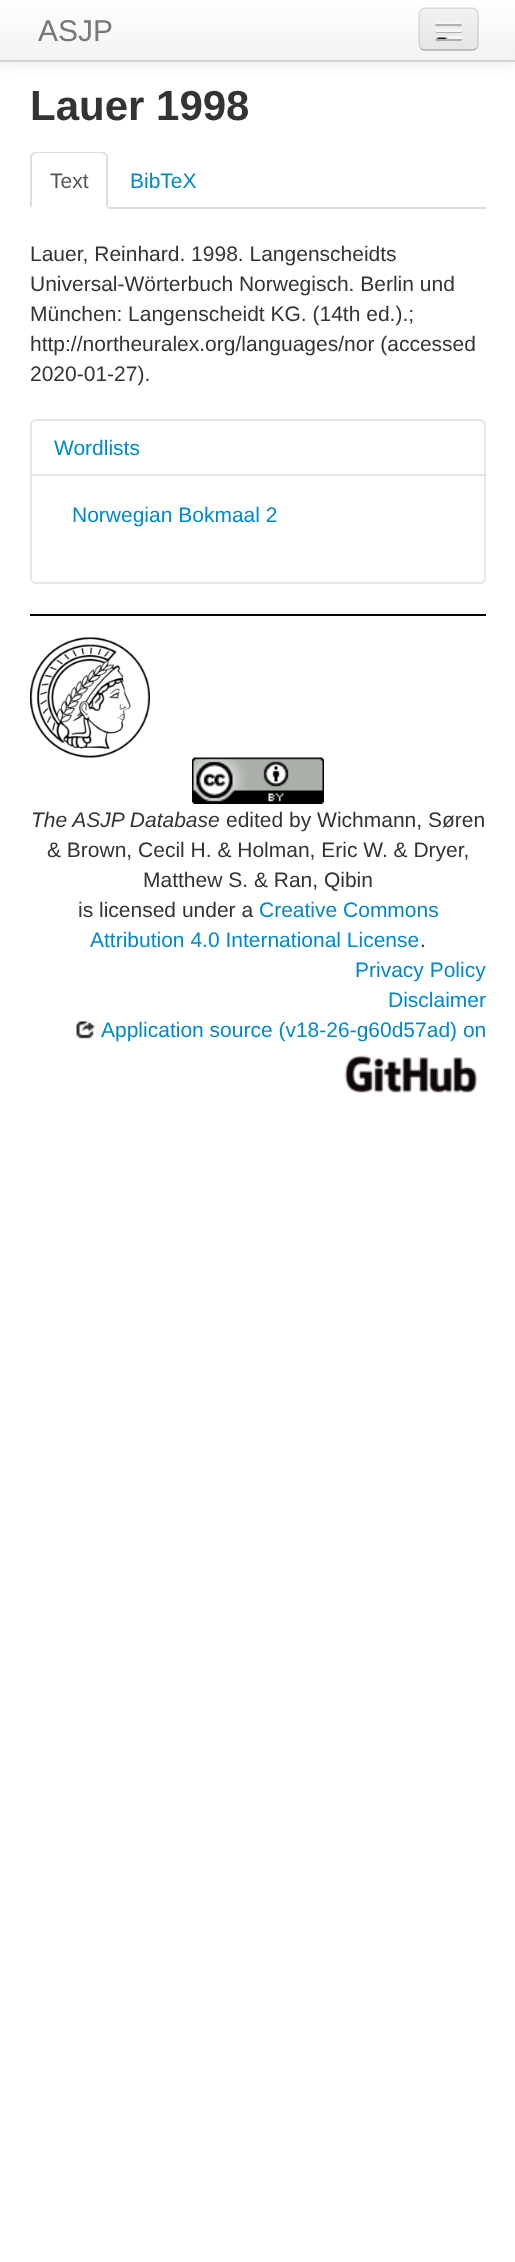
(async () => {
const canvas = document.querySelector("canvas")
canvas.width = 515
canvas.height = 2262
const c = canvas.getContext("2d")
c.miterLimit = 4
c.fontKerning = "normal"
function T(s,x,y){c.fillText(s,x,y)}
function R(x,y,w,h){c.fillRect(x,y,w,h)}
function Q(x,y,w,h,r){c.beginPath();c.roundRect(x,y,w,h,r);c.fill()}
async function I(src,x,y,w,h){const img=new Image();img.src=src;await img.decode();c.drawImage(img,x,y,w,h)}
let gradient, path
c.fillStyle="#fff"
R(0,0,515,2262)
c.fillStyle="#0000001a"
c.filter="blur(7.5px)"
c.beginPath()
c.rect(0,2,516,61)
c.fill()
c.filter="none"
gradient = c.createLinearGradient(258,0,258,60)
gradient.addColorStop(0,"#fff")
gradient.addColorStop(1,"#f2f2f2")
c.fillStyle = gradient
R(0,0,515,60)
c.fillStyle="#d4d4d4"
R(0,60,515,2)
c.font="30px Liberation Sans"
c.fillStyle="#777"
T("ASJP",38,41)
c.fillStyle="#ededed"
Q(419,8,60,43,6)
c.save()
c.beginPath()
c.roundRect(419,8,60,43,6)
c.clip()
gradient = c.createLinearGradient(449,9,449,50)
gradient.addColorStop(0,"#f2f2f2")
gradient.addColorStop(1,"#e5e5e5")
c.fillStyle = gradient
R(419,9,60,41)
c.restore()
path = new Path2D("M476 48.5c-1 1-2 1.5-3.5 1.5h-48c-1.5 0-2.5-.5-3.5-1.5")
c.strokeStyle="#00000040"
c.lineWidth=1.5
c.stroke(path)
path = new Path2D("M421 48.5c-1-1-2-2-2-3.5v-31.5c0-1.5 1-2.5 2-3.5c1-1 2-2 3.5-2h48c1.5 0 2.5 1 3.5 2c1 1 2 2 2 3.5v31.5c0 1.5-1 2.5-2 3.5")
c.strokeStyle="#0000001a"
c.stroke(path)
c.fillStyle="#b2b2b2"
path = new Path2D("M435.5 23.5l-.5 1.5c.5 2 5 1 5.5 1h16c.5 0 5 1 5.5-1l-.5-1.5l-1 .5h-24z")
c.fill(path)
c.fillStyle="#f5f5f5"
Q(435,21,27,3,1.5)
c.fillStyle="#b0b0b0"
path = new Path2D("M435 30.5c-1.5 3.5 5.5 2.5 5.5 2.5h16c0 0 7 1 5.5-2.5c-.5 .5-1 1-1.5 1h-24c-.5 0-1-.5-1.5-1z")
c.fill(path)
c.fillStyle="#f5f5f5"
Q(435,29,27,3,1.5)
c.fillStyle="#aeaeae"
path = new Path2D("M435.5 38.5l-.5 1.5c.5 2 5 1 5.5 1h16c.5 0 5 1 5.5-1l-.5-1.5l-1 .5h-24z")
c.fill(path)
c.fillStyle="#f5f5f5"
Q(435,36,27,3,1.5)
await I("1.png",436,37,12,2)
c.font="bold 42px Liberation Sans"
c.fillStyle="#333"
T("Lauer 1998",30,120)
c.fillStyle="#ddd"
R(108,207,378,2)
path = new Path2D("M36 152c-1 0-3 0-4 1l1 2l3-2h66l3 2l1-2c-1-1-3-1-4-1z")
c.fill(path)
path = new Path2D("M106 153c1 1 2 3 2 5v50l-2-2v-48c0-1 0-3-1-3z")
c.fill(path)
path = new Path2D("M30 158v50l2-2v-48c0-1 0-3 1-3l-1-2c-1 1-2 3-2 5z")
c.fill(path)
c.font="21px Liberation Sans"
c.fillStyle="#555"
T("Text",50,188)
c.fillStyle="#08c"
T("BibTeX",130,188)
c.fillStyle="#333"
T("Lauer, Reinhard. 1998. Langenscheidts",30,261)
T("Universal-Wörterbuch Norwegisch. Berlin und",30,291)
T("München: Langenscheidt KG. (14th ed.).;",30,321)
T("http://northeuralex.org/languages/nor (accessed",30,351)
T("2020-01-27).",30,381)
c.beginPath()
c.roundRect(31,420,454,163,5)
c.strokeStyle="#e5e5e5"
c.lineWidth=2
c.stroke()
c.fillStyle="#08c"
T("Wordlists",54,455)
c.fillStyle="#e5e5e5"
R(32,474,453,2)
c.fillStyle="#08c"
T("Norwegian Bokmaal 2",72,522)
c.fillStyle="#000"
R(30,614,456,2)
await I("2.png",30,637,120,121)
await I("3.png",192,757,132,47)
c.font="italic 21px Liberation Sans"
c.fillStyle="#333"
T("The ASJP Database",31,827)
c.font="21px Liberation Sans"
T("edited by Wichmann, Søren",226,827)
T("& Brown, Cecil H. & Holman, Eric W. & Dryer,",47,857)
T("Matthew S. & Ran, Qibin",143,887)
T("is licensed under a",78,917)
c.fillStyle="#08c"
T("Creative Commons",259,917)
T("Attribution 4.0 International License",90,947)
c.fillStyle="#333"
T(".",420,947)
c.fillStyle="#08c"
T("Privacy Policy",355,977)
T("Disclaimer",388,1007)
await I("4.png",76,1021,19,18)
T("Application source (v18-26-g60d57ad) on",101,1037)
await I("5.png",344,1055,134,38)
})()
